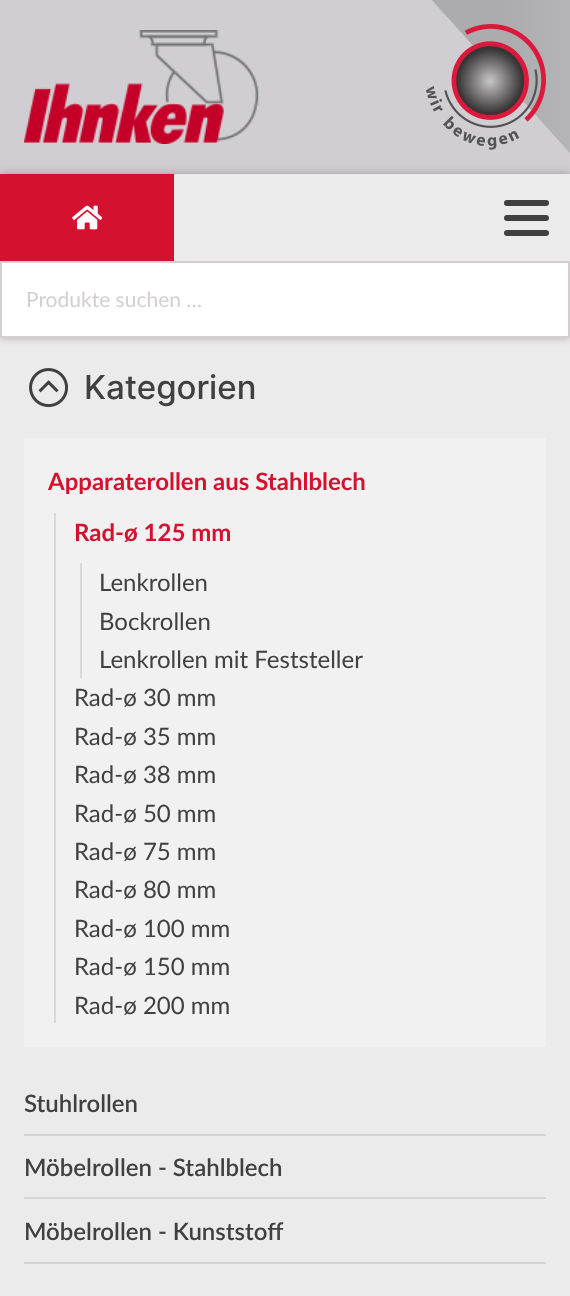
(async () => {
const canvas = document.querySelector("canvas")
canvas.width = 570
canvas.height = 1296
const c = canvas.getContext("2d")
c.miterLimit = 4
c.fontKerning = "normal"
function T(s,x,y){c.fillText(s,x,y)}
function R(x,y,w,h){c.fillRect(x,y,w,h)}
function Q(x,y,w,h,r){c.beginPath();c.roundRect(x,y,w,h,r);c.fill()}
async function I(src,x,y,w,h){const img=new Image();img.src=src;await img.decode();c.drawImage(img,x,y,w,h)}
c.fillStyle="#fff"
R(0,0,570,1296)
await I("1.png",0,0,570,174)
await I("2.png",24,30,235,114)
await I("3.png",426,24,120,126)
c.fillStyle="#ebebeb"
R(0,338,570,958)
c.fillStyle="#00000040"
c.filter="blur(4px)"
c.beginPath()
c.rect(0,174,570,164)
c.fill()
c.filter="none"
c.fillStyle="#ebebeb"
R(174,174,396,87)
c.fillStyle="#d51130"
R(0,174,174,87)
await I("4.png",72,205,30,25)
c.fillStyle="#404040"
Q(504,200,45,6,3)
Q(504,215,45,6,3)
Q(504,230,45,6,3)
c.fillStyle="#fff"
c.beginPath()
c.rect(1,262,568,75)
c.fill()
c.strokeStyle="#d3ced2"
c.lineWidth=2
c.stroke()
c.font="21px Lato"
c.fillStyle="#d3ced2"
T("Produkte suchen …",26,307)
await I("5.png",29,368,40,40)
c.font="500 33px Inter"
c.fillStyle="#404040"
T("Kategorien",84,399)
c.fillStyle="#f1f1f1"
R(24,438,522,609)
c.font="bold 24px Lato"
c.fillStyle="#d51130"
T("Apparaterollen aus Stahlblech",48,490)
c.fillStyle="#d9d9d9"
R(54,513,2,510)
c.fillStyle="#d51130"
T("Rad-ø 125 mm",74,541)
c.fillStyle="#d9d9d9"
R(80,563,2,115)
c.font="24px Lato"
c.fillStyle="#404040"
T("Lenkrollen",99,591)
T("Bockrollen",99,630)
T("Lenkrollen mit Feststeller",99,668)
T("Rad-ø 30 mm",74,706)
T("Rad-ø 35 mm",74,745)
T("Rad-ø 38 mm",74,783)
T("Rad-ø 50 mm",74,822)
T("Rad-ø 75 mm",74,860)
T("Rad-ø 80 mm",74,898)
T("Rad-ø 100 mm",74,937)
T("Rad-ø 150 mm",74,975)
T("Rad-ø 200 mm",74,1014)
c.fillStyle="#d4d4d4"
R(24,1134,522,2)
c.font="600 24px Lato"
c.fillStyle="#404040"
T("Stuhlrollen",24,1112)
c.fillStyle="#d4d4d4"
R(24,1197,522,2)
c.fillStyle="#404040"
T("Möbelrollen - Stahlblech",24,1176)
c.fillStyle="#d4d4d4"
R(24,1262,522,2)
c.fillStyle="#404040"
T("Möbelrollen - Kunststoff",24,1240)
})()
